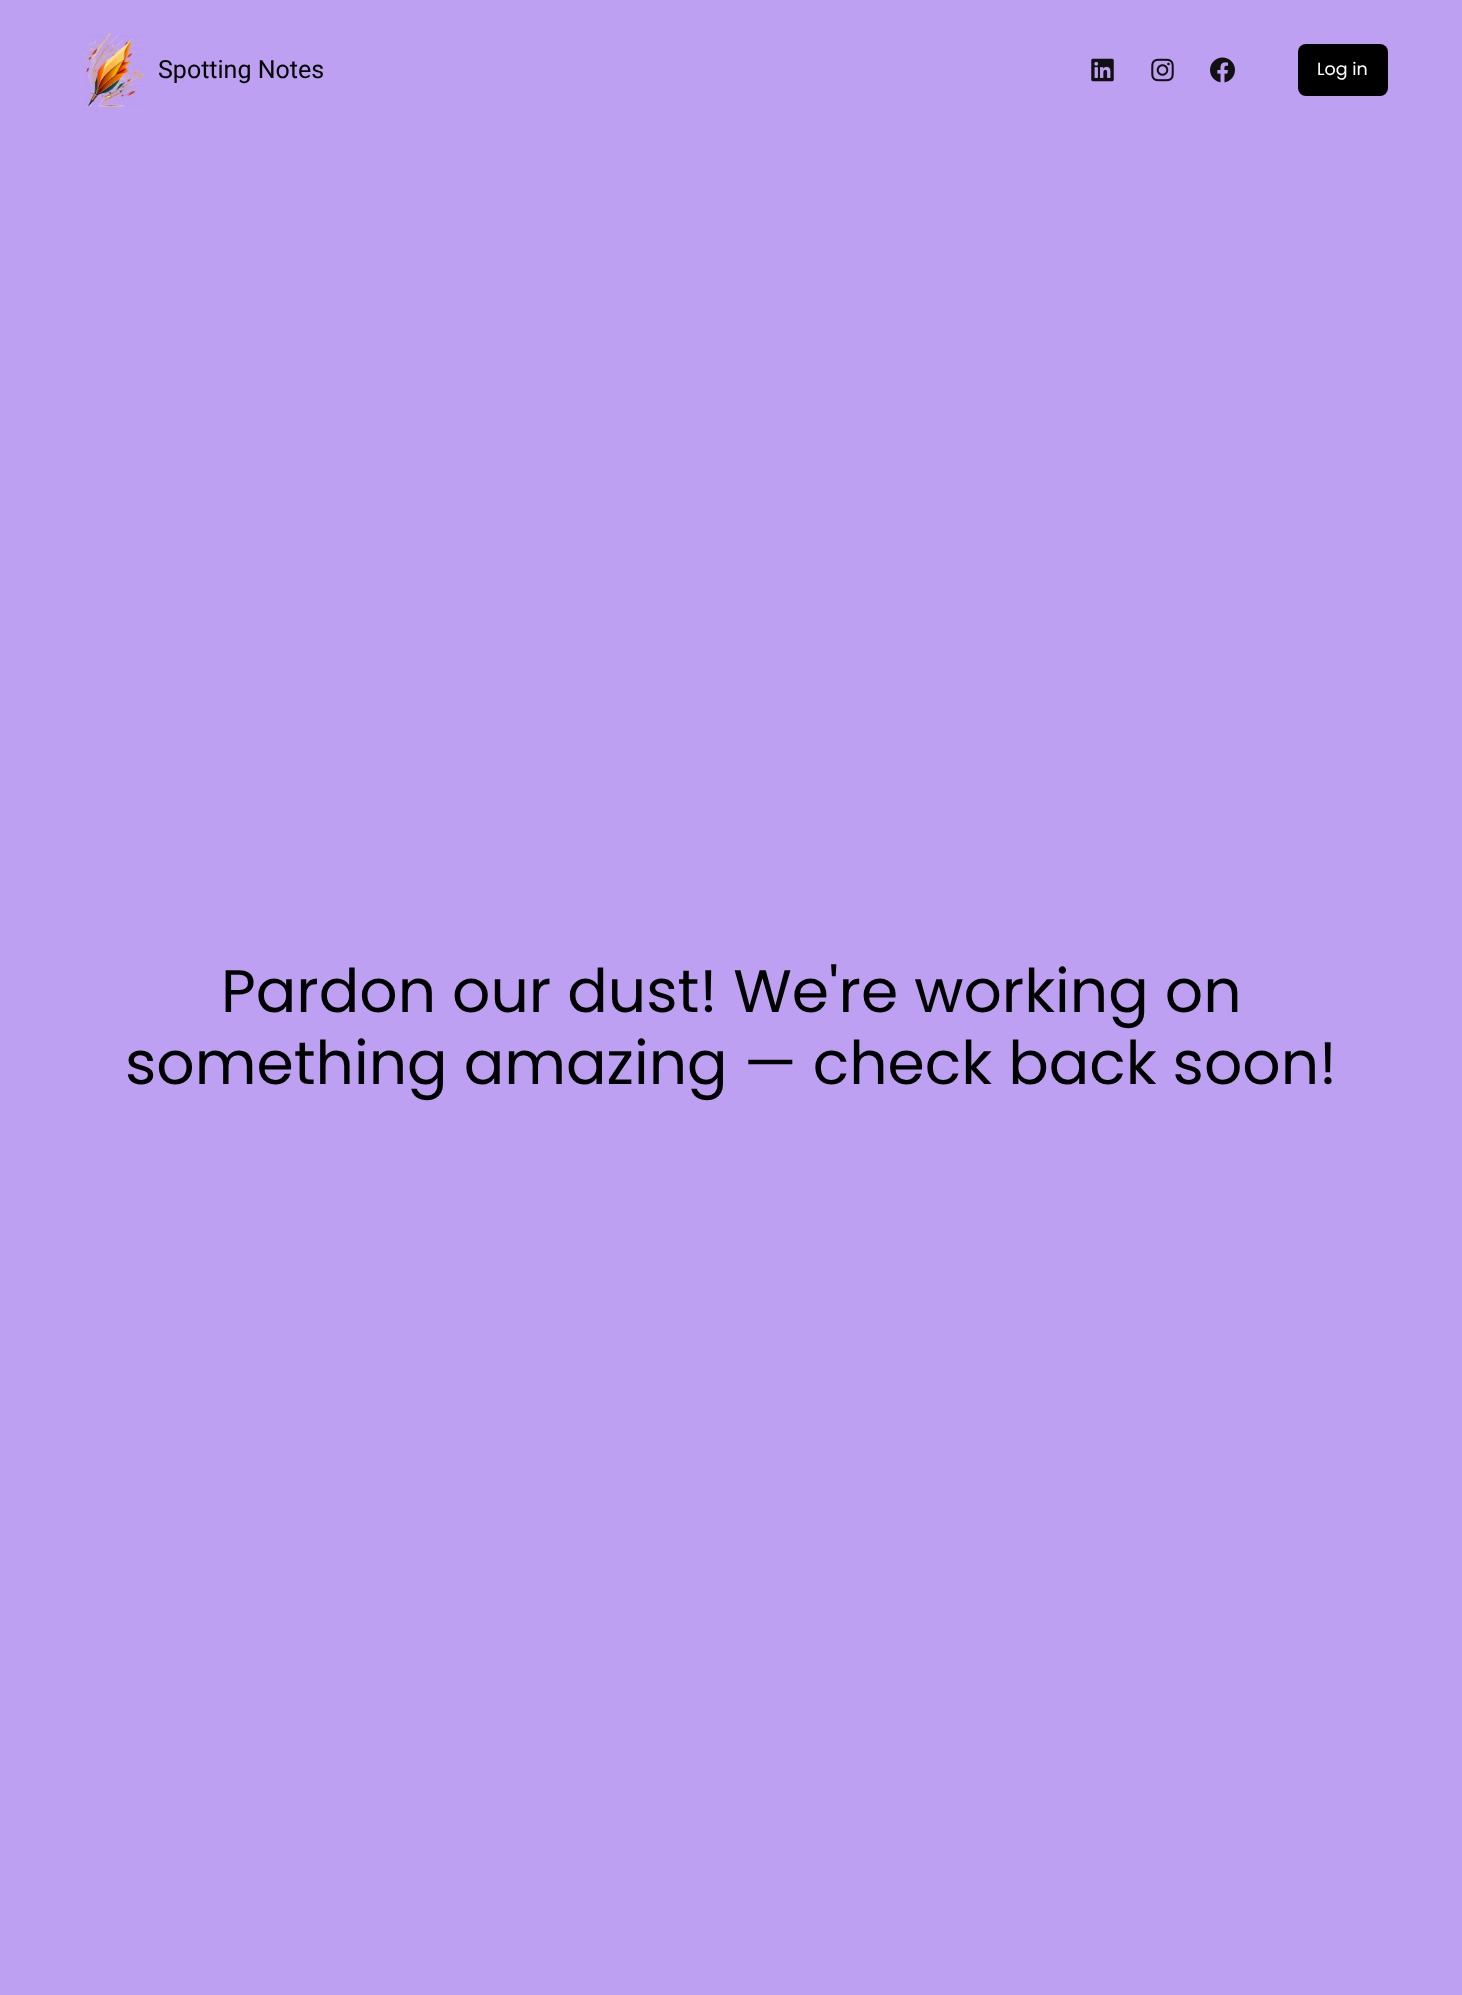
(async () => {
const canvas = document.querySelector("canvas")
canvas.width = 1462
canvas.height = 1995
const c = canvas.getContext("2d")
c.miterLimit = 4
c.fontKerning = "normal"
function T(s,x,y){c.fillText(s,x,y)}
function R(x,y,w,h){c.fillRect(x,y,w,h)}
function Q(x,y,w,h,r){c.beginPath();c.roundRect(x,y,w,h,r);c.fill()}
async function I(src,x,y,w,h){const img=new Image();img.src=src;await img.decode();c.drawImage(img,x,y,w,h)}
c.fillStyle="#bea0f2"
R(0,0,1462,1995)
await I("1.png",84,33,60,74)
c.font="25px Heebo"
c.fillStyle="#000"
T("Spotting Notes",158,78)
await I("2.png",1091,58,23,24)
await I("3.png",1151,58,23,24)
await I("4.png",1210,57,25,26)
Q(1298,44,90,52,8)
c.font="17.5px Poppins"
c.fillStyle="#fff"
T("Log in",1317,75)
c.font="60px Poppins"
c.fillStyle="#000"
T("Pardon our dust! We're working on",221,1012)
T("something amazing — check back soon!",125,1084)
})()
